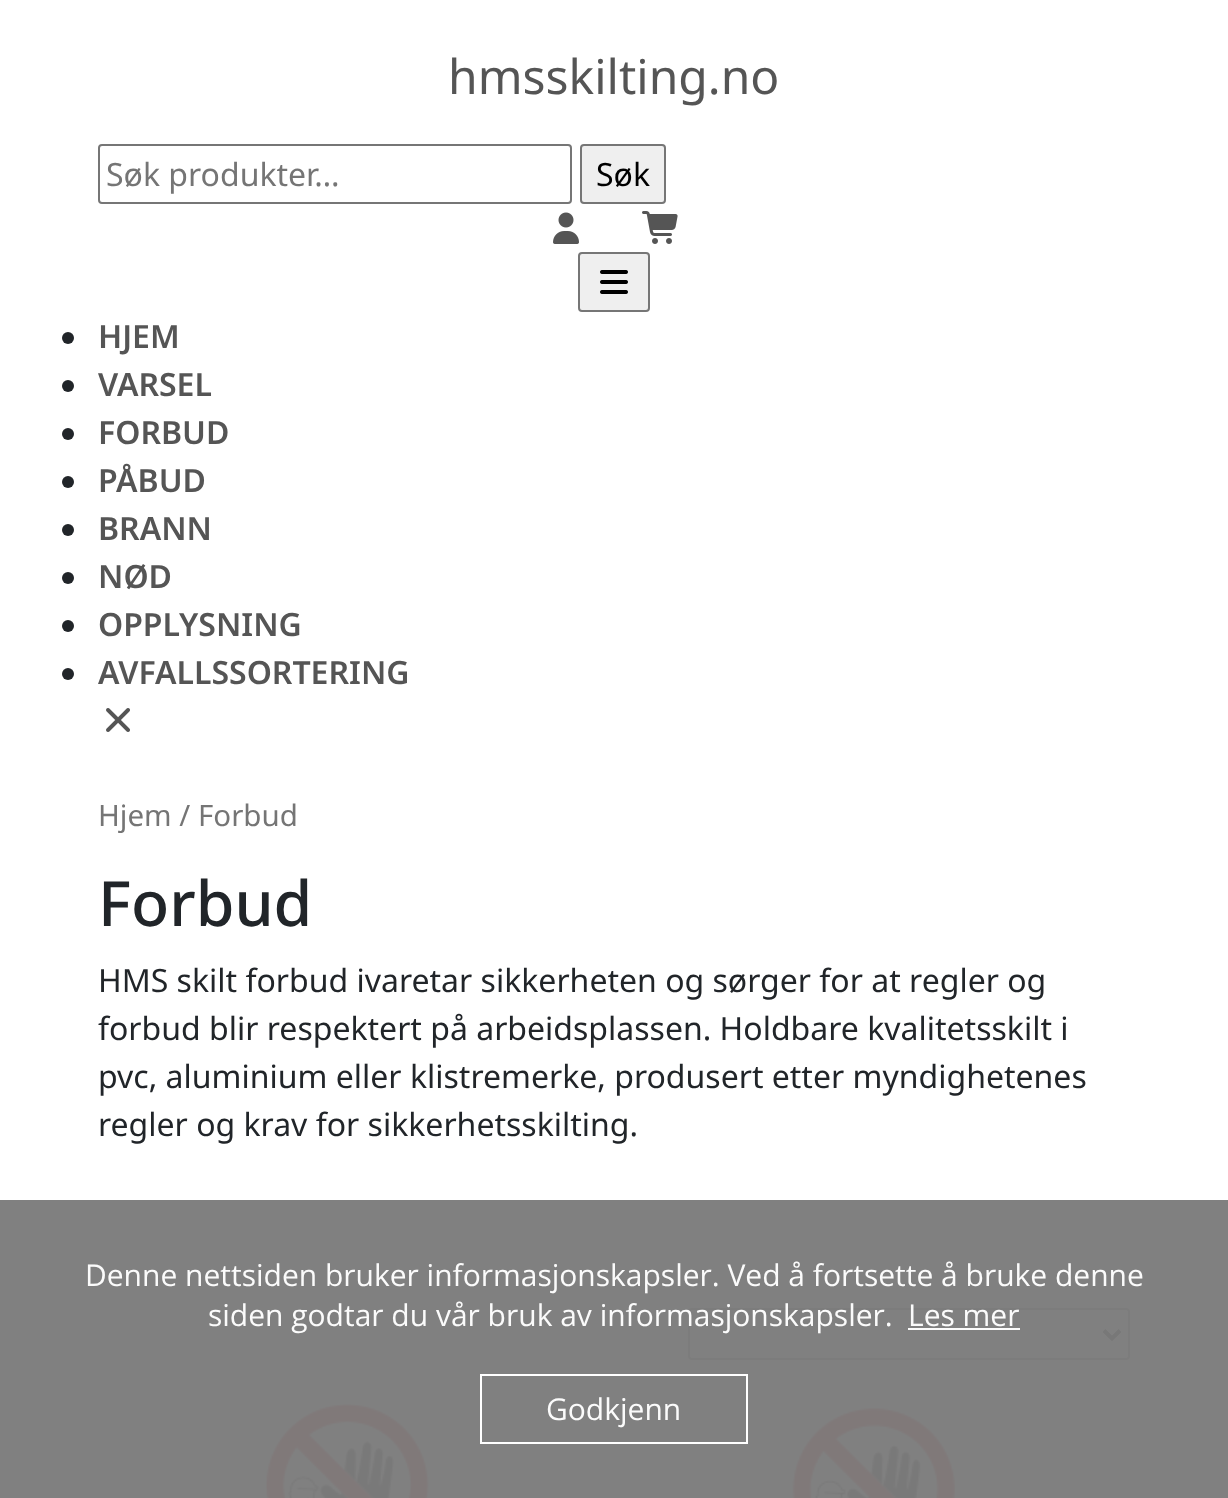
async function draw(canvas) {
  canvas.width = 1228
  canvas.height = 1498
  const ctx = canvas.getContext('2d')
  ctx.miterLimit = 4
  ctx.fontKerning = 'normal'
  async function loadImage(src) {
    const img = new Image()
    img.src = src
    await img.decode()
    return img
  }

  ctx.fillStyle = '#fff'
  ctx.fillRect(0, 0, 1228, 1498)
  ctx.font = '48px Noto Sans'
  ctx.fillStyle = '#555'
  ctx.fillText('hmsskilting.no', 448, 94)
  ctx.beginPath()
  ctx.roundRect(99, 145, 472, 58, 3)
  ctx.strokeStyle = '#767676'
  ctx.lineWidth = 2
  ctx.stroke()
  ctx.font = '32px Noto Sans'
  ctx.fillStyle = '#757575'
  ctx.fillText('Søk produkter…', 106, 186)
  ctx.fillStyle = '#efefef'
  ctx.beginPath()
  ctx.roundRect(581, 145, 84, 58, 3)
  ctx.fill()
  ctx.stroke()
  ctx.fillStyle = '#000'
  ctx.fillText('Søk', 596, 186)
  ctx.drawImage(await loadImage('image0.png'), 553, 212, 26, 32)
  ctx.drawImage(await loadImage('image1.png'), 642, 211, 36, 33)
  ctx.fillStyle = '#efefef'
  ctx.beginPath()
  ctx.roundRect(579, 253, 70, 58, 3)
  ctx.fill()
  ctx.stroke()
  ctx.drawImage(await loadImage('image2.png'), 600, 270, 28, 24)
  ctx.fillStyle = '#212529'
  ctx.beginPath()
  ctx.arc(68, 338, 6, 0, 2 * Math.PI)
  ctx.fill()
  ctx.font = '600 32px Noto Sans'
  ctx.fillStyle = '#555'
  ctx.fillText('HJEM', 98, 348)
  ctx.fillStyle = '#212529'
  ctx.beginPath()
  ctx.arc(68, 386, 6, 0, 2 * Math.PI)
  ctx.fill()
  ctx.fillStyle = '#555'
  ctx.fillText('VARSEL', 98, 396)
  ctx.fillStyle = '#212529'
  ctx.beginPath()
  ctx.arc(68, 434, 6, 0, 2 * Math.PI)
  ctx.fill()
  ctx.fillStyle = '#555'
  ctx.fillText('FORBUD', 98, 444)
  ctx.fillStyle = '#212529'
  ctx.beginPath()
  ctx.arc(68, 482, 6, 0, 2 * Math.PI)
  ctx.fill()
  ctx.fillStyle = '#555'
  ctx.fillText('PÅBUD', 98, 492)
  ctx.fillStyle = '#212529'
  ctx.beginPath()
  ctx.arc(68, 530, 6, 0, 2 * Math.PI)
  ctx.fill()
  ctx.fillStyle = '#555'
  ctx.fillText('BRANN', 98, 540)
  ctx.fillStyle = '#212529'
  ctx.beginPath()
  ctx.arc(68, 578, 6, 0, 2 * Math.PI)
  ctx.fill()
  ctx.fillStyle = '#555'
  ctx.fillText('NØD', 98, 588)
  ctx.fillStyle = '#212529'
  ctx.beginPath()
  ctx.arc(68, 626, 6, 0, 2 * Math.PI)
  ctx.fill()
  ctx.fillStyle = '#555'
  ctx.fillText('OPPLYSNING', 98, 636)
  ctx.fillStyle = '#212529'
  ctx.beginPath()
  ctx.arc(68, 674, 6, 0, 2 * Math.PI)
  ctx.fill()
  ctx.fillStyle = '#555'
  ctx.fillText('AVFALLSSORTERING', 98, 684)
  ctx.drawImage(await loadImage('image3.png'), 106, 708, 24, 24)
  ctx.font = '29.5px Noto Sans'
  ctx.fillStyle = '#757575'
  ctx.fillText('Hjem / Forbud', 98, 826)
  ctx.font = '500 62.5px Noto Sans'
  ctx.fillStyle = '#212529'
  ctx.fillText('Forbud', 98, 926)
  ctx.font = '32px Noto Sans'
  ctx.fillText('HMS skilt forbud ivaretar sikkerheten og sørger for at regler og', 98, 992)
  ctx.fillText('forbud blir respektert på arbeidsplassen. Holdbare kvalitetsskilt i', 98, 1040)
  ctx.fillText('pvc, aluminium eller klistremerke, produsert etter myndighetenes', 98, 1088)
  ctx.fillText('regler og krav for sikkerhetsskilting.', 98, 1136)
  ctx.beginPath()
  ctx.roundRect(689, 1309, 440, 50, 3)
  ctx.stroke()
  ctx.beginPath()
  ctx.moveTo(1104, 1330.5)
  ctx.lineTo(1112, 1338.5)
  ctx.lineTo(1120, 1330.5)
  ctx.strokeStyle = '#000'
  ctx.lineWidth = 4
  ctx.stroke()
  ctx.drawImage(await loadImage('image4.png'), 264, 1403, 165, 95)
  ctx.drawImage(await loadImage('image5.png'), 792, 1408, 164, 90)
  ctx.fillStyle = '#7c7c7cf7'
  ctx.fillRect(0, 1200, 1228, 298)
  ctx.font = '30px Open Sans'
  ctx.fillStyle = '#fbfbfb'
  ctx.fillText('Denne nettsiden bruker informasjonskapsler. Ved å fortsette å bruke denne', 85, 1286)
  ctx.fillText('siden godtar du vår bruk av informasjonskapsler.', 208, 1326)
  ctx.fillText('Les mer', 908, 1326)
  ctx.fillStyle = '#fffffff7'
  ctx.fillRect(908, 1328, 112, 2)
  ctx.strokeStyle = '#fff'
  ctx.lineWidth = 2
  ctx.strokeRect(481, 1375, 266, 68)
  ctx.fillStyle = '#fbfbfb'
  ctx.fillText('Godkjenn', 546, 1420)
}

draw(document.querySelector('canvas'))
